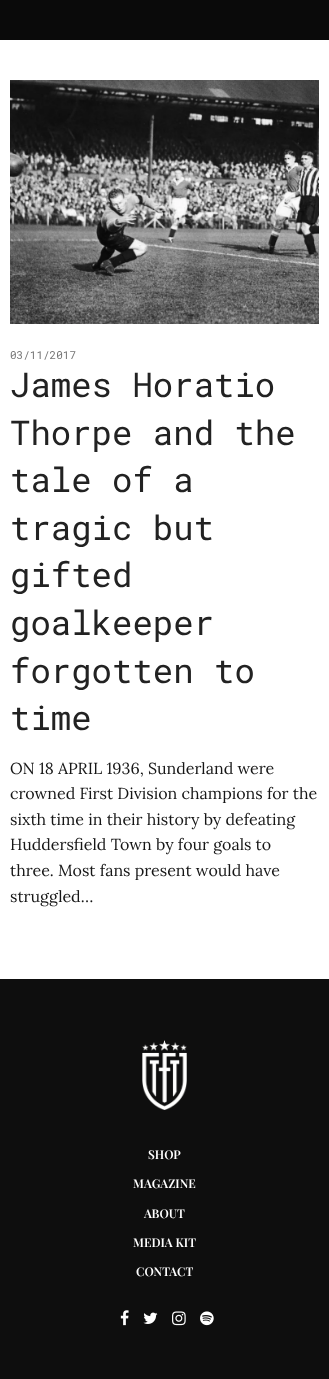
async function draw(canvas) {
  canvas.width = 329
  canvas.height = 1379
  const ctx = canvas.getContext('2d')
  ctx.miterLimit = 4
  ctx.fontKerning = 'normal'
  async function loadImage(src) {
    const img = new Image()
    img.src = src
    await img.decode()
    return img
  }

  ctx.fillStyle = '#fff'
  ctx.fillRect(0, 0, 329, 1379)
  ctx.fillStyle = '#0a0a0a'
  ctx.fillRect(0, 0, 329, 40)
  ctx.drawImage(await loadImage('image0.png'), 10, 80, 309, 244)
  ctx.font = '11px Roboto Mono'
  ctx.fillStyle = '#767676'
  ctx.fillText('03/11/2017', 10, 359)
  ctx.font = '34px Roboto Mono'
  ctx.fillStyle = '#222'
  ctx.fillText('James Horatio', 10, 397)
  ctx.fillText('Thorpe and the', 10, 445)
  ctx.fillText('tale of a', 10, 492)
  ctx.fillText('tragic but', 10, 540)
  ctx.fillText('gifted', 10, 587)
  ctx.fillText('goalkeeper', 10, 635)
  ctx.fillText('forgotten to', 10, 683)
  ctx.fillText('time', 10, 730)
  ctx.font = '16px Lora'
  ctx.fillStyle = '#161616'
  ctx.fillText('ON 18 APRIL 1936, Sunderland were', 10, 774)
  ctx.fillText('crowned First Division champions for the', 10, 799)
  ctx.fillText('sixth time in their history by defeating', 10, 825)
  ctx.fillText('Huddersfield Town by four goals to', 10, 850)
  ctx.fillText('three. Most fans present would have', 10, 876)
  ctx.fillText('struggled…', 10, 902)
  ctx.fillStyle = '#0e0e0e'
  ctx.fillRect(0, 979, 329, 400)
  ctx.drawImage(await loadImage('image1.png'), 142, 1040, 45, 70)
  ctx.font = '600 12px Playfair Display'
  ctx.fillStyle = '#fff'
  ctx.fillText('SHOP', 148, 1159)
  ctx.fillText('MAGAZINE', 133, 1188)
  ctx.fillText('ABOUT', 144, 1218)
  ctx.fillText('MEDIA KIT', 133, 1247)
  ctx.fillText('CONTACT', 136, 1276)
  ctx.drawImage(await loadImage('image2.png'), 120, 1310, 9, 16)
  ctx.drawImage(await loadImage('image3.png'), 143, 1312, 15, 12)
  ctx.drawImage(await loadImage('image4.png'), 172, 1311, 14, 15)
  ctx.drawImage(await loadImage('image5.png'), 200, 1311, 14, 15)
}

draw(document.querySelector('canvas'))
